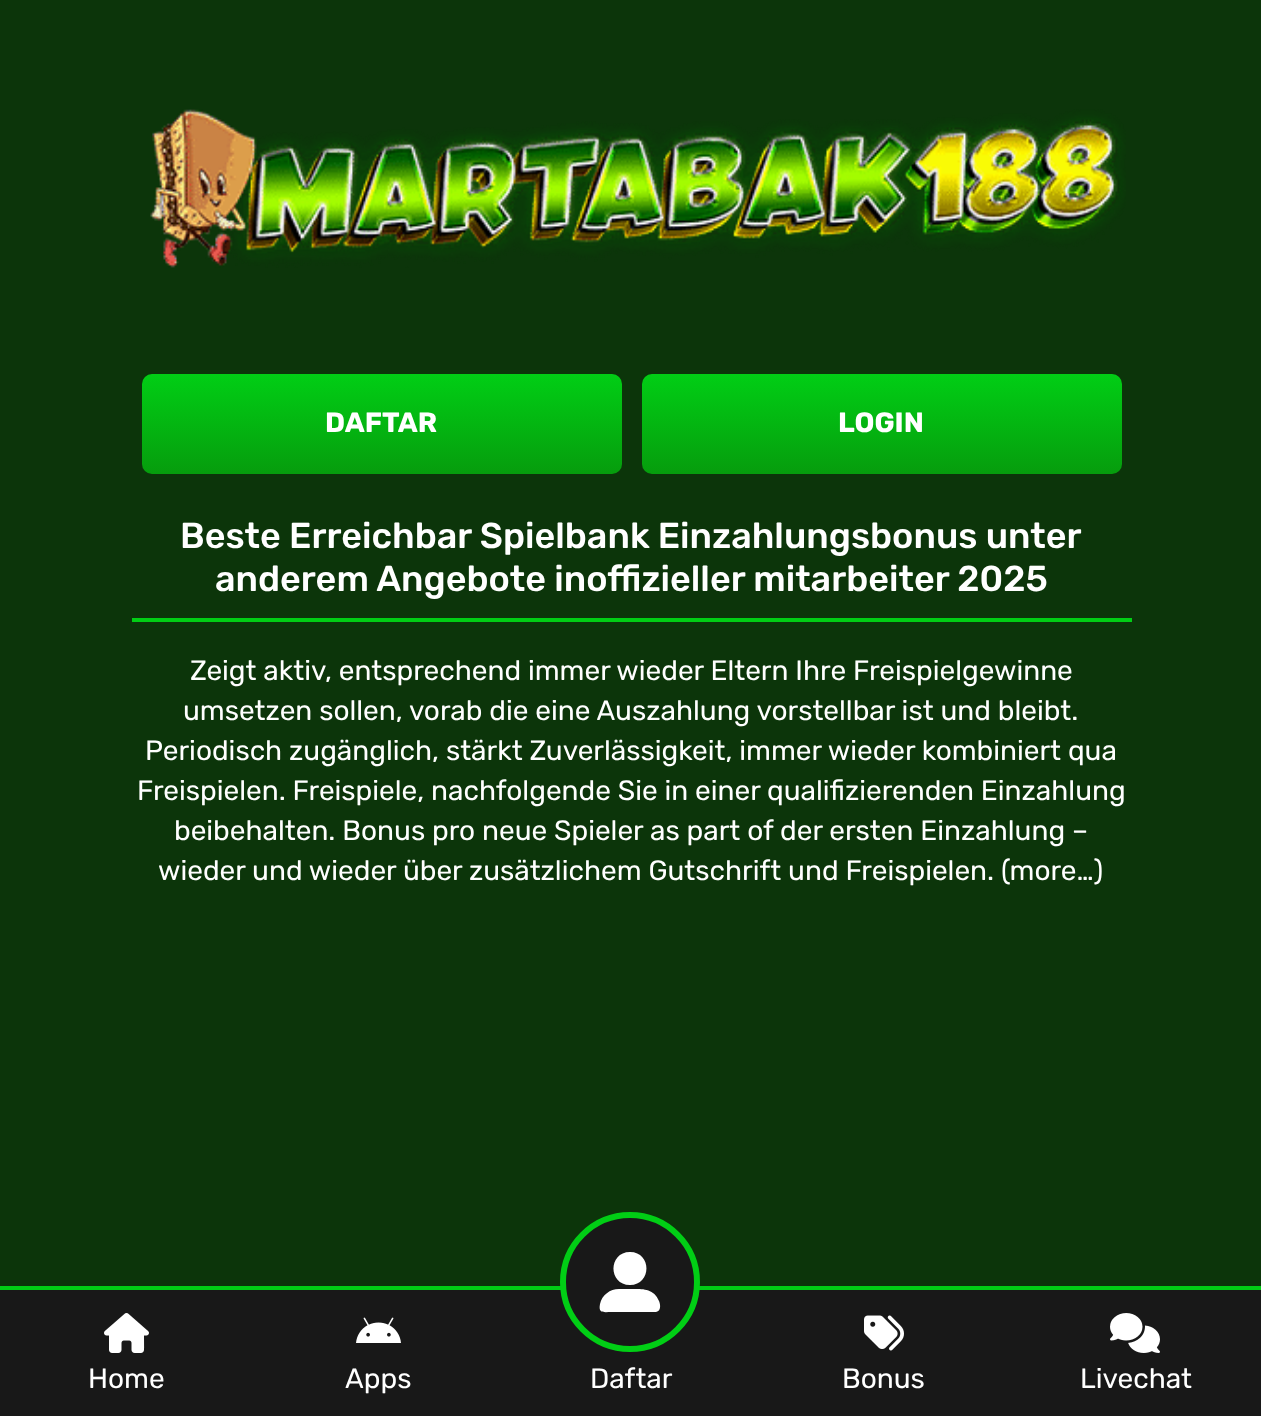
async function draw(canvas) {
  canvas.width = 1261
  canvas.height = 1416
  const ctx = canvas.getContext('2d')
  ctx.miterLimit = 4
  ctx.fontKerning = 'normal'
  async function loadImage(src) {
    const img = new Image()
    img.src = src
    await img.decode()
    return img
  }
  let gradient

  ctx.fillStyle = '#0c350a'
  ctx.fillRect(0, 0, 1261, 1416)
  ctx.drawImage(await loadImage('image0.png'), 150, 109, 976, 159)
  gradient = ctx.createLinearGradient(382, 374, 382, 474)
  gradient.addColorStop(0, '#01ce15')
  gradient.addColorStop(1, '#069d0d')
  ctx.fillStyle = gradient
  ctx.beginPath()
  ctx.roundRect(142, 374, 480, 100, 10)
  ctx.fill()
  ctx.font = 'bold 28px Rubik'
  ctx.fillStyle = '#fff'
  ctx.fillText('DAFTAR', 325, 432)
  gradient = ctx.createLinearGradient(882, 374, 882, 474)
  gradient.addColorStop(0, '#01ce15')
  gradient.addColorStop(1, '#069d0d')
  ctx.fillStyle = gradient
  ctx.beginPath()
  ctx.roundRect(642, 374, 480, 100, 10)
  ctx.fill()
  ctx.fillStyle = '#fff'
  ctx.fillText('LOGIN', 838, 432)
  ctx.fillStyle = '#01ce15'
  ctx.fillRect(132, 618, 1000, 4)
  ctx.font = '500 36px Rubik'
  ctx.fillStyle = '#fff'
  ctx.fillText('Beste Erreichbar Spielbank Einzahlungsbonus unter', 180, 548)
  ctx.fillText('anderem Angebote inoffizieller mitarbeiter 2025', 215, 591)
  ctx.font = '28px Rubik'
  ctx.fillText('Zeigt aktiv, entsprechend immer wieder Eltern Ihre Freispielgewinne', 190, 680)
  ctx.fillText('umsetzen sollen, vorab die eine Auszahlung vorstellbar ist und bleibt.', 183, 720)
  ctx.fillText('Periodisch zugänglich, stärkt Zuverlässigkeit, immer wieder kombiniert qua', 145, 760)
  ctx.fillText('Freispielen. Freispiele, nachfolgende Sie in einer qualifizierenden Einzahlung', 137, 800)
  ctx.fillText('beibehalten. Bonus pro neue Spieler as part of der ersten Einzahlung –', 174, 840)
  ctx.fillText('wieder und wieder über zusätzlichem Gutschrift und Freispielen. (more…)', 158, 880)
  ctx.fillStyle = '#181818'
  ctx.fillRect(0, 1290, 1261, 126)
  ctx.fillStyle = '#01ce15'
  ctx.fillRect(0, 1286, 1261, 4)
  ctx.drawImage(await loadImage('image1.png'), 104, 1313, 45, 40)
  ctx.fillStyle = '#fff'
  ctx.fillText('Home', 88, 1388)
  ctx.drawImage(await loadImage('image2.png'), 356, 1317, 45, 26)
  ctx.fillText('Apps', 345, 1388)
  ctx.fillStyle = '#181818'
  ctx.beginPath()
  ctx.arc(630, 1282, 67, 0, 2 * Math.PI)
  ctx.fill()
  ctx.strokeStyle = '#01ce15'
  ctx.lineWidth = 6
  ctx.stroke()
  ctx.fillStyle = '#fff'
  ctx.beginPath()
  ctx.moveTo(630, 1285)
  ctx.bezierCurveTo(652, 1285, 652, 1252, 630, 1252)
  ctx.bezierCurveTo(608, 1252, 608, 1285, 630, 1285)
  ctx.closePath()
  ctx.moveTo(619, 1289)
  ctx.bezierCurveTo(610, 1289, 602, 1295, 600, 1304)
  ctx.bezierCurveTo(598, 1314, 604, 1312, 612, 1312)
  ctx.lineTo(656, 1312)
  ctx.bezierCurveTo(662, 1311, 660, 1303, 659, 1301)
  ctx.bezierCurveTo(654, 1289, 644, 1289, 634, 1289)
  ctx.closePath()
  ctx.fill()
  ctx.fillText('Daftar', 590, 1388)
  ctx.drawImage(await loadImage('image3.png'), 864, 1315, 40, 36)
  ctx.fillText('Bonus', 842, 1388)
  ctx.drawImage(await loadImage('image4.png'), 1110, 1313, 50, 40)
  ctx.fillText('Livechat', 1080, 1388)
}

draw(document.querySelector('canvas'))
